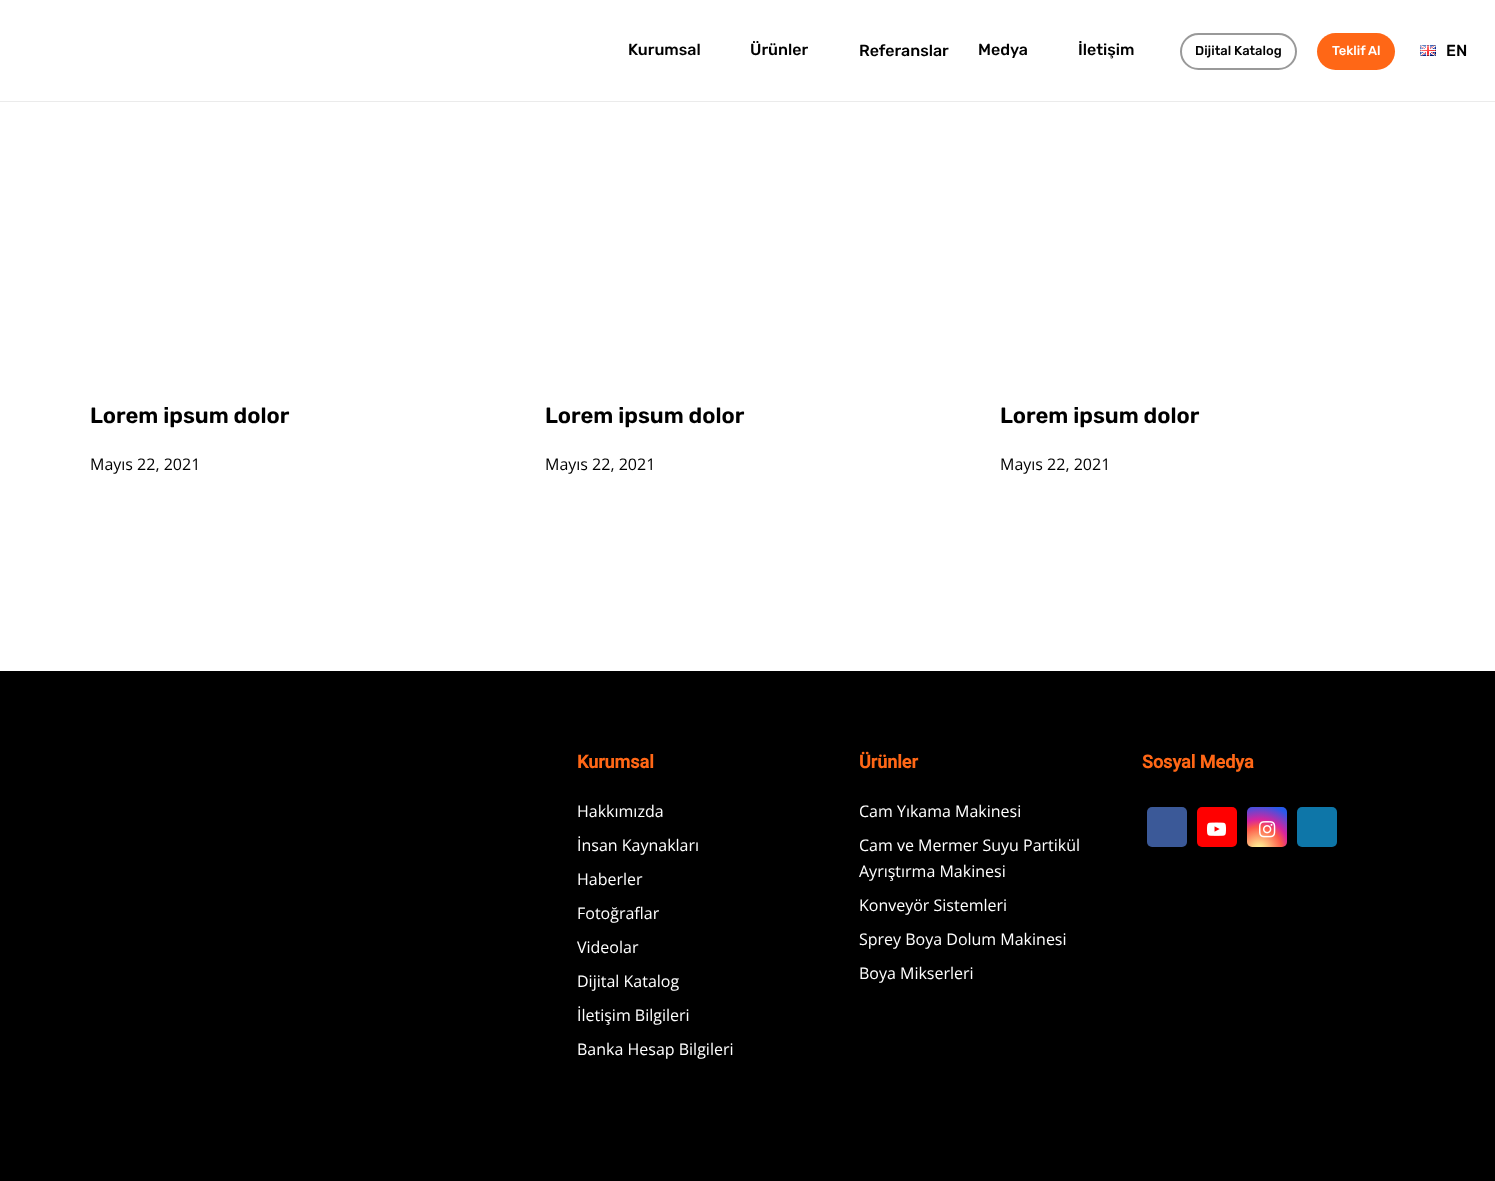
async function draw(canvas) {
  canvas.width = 1495
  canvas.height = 1181
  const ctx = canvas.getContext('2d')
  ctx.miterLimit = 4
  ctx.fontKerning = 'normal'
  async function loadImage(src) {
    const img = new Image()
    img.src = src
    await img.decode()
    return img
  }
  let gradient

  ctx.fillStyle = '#fff'
  ctx.fillRect(0, 0, 1495, 1181)
  ctx.fillStyle = '#ebebeb'
  ctx.fillRect(0, 101, 1495, 1)
  ctx.font = '500 16px Rubik'
  ctx.fillStyle = '#000'
  ctx.fillText('Kurumsal', 628, 55)
  ctx.fillText('Ürünler', 750, 55)
  ctx.fillText('Referanslar', 859, 56)
  ctx.fillText('Medya', 978, 55)
  ctx.fillText('İletişim', 1078, 55)
  ctx.beginPath()
  ctx.roundRect(1181, 34, 115, 35, 17.5)
  ctx.strokeStyle = '#999'
  ctx.lineWidth = 2
  ctx.stroke()
  ctx.font = '500 13px Rubik'
  ctx.fillText('Dijital Katalog', 1195, 55)
  ctx.fillStyle = '#ff6716'
  ctx.beginPath()
  ctx.roundRect(1317, 33, 78, 37, 18.5)
  ctx.fill()
  ctx.fillStyle = '#fff'
  ctx.fillText('Teklif Al', 1332, 55)
  ctx.drawImage(await loadImage('image0.png'), 1420, 45, 16, 11)
  ctx.font = '500 16px Rubik'
  ctx.fillStyle = '#000'
  ctx.fillText('EN', 1446, 56)
  ctx.font = '600 22px Rubik'
  ctx.fillText('Lorem ipsum dolor', 90, 423)
  ctx.font = '16px Open Sans'
  ctx.fillText('Mayıs 22, 2021', 90, 470)
  ctx.font = '600 22px Rubik'
  ctx.fillText('Lorem ipsum dolor', 545, 423)
  ctx.font = '16px Open Sans'
  ctx.fillText('Mayıs 22, 2021', 545, 470)
  ctx.font = '600 22px Rubik'
  ctx.fillText('Lorem ipsum dolor', 1000, 423)
  ctx.font = '16px Open Sans'
  ctx.fillText('Mayıs 22, 2021', 1000, 470)
  ctx.fillRect(0, 671, 1495, 510)
  ctx.font = 'bold 18px Roboto'
  ctx.fillStyle = '#ff6716'
  ctx.fillText('Kurumsal', 577, 768)
  ctx.font = '16px Open Sans'
  ctx.fillStyle = '#fff'
  ctx.fillText('Hakkımızda', 577, 817)
  ctx.fillText('İnsan Kaynakları', 577, 851)
  ctx.fillText('Haberler', 577, 885)
  ctx.fillText('Fotoğraflar', 577, 919)
  ctx.fillText('Videolar', 577, 953)
  ctx.fillText('Dijital Katalog', 577, 987)
  ctx.fillText('İletişim Bilgileri', 577, 1021)
  ctx.fillText('Banka Hesap Bilgileri', 577, 1055)
  ctx.font = 'bold 18px Roboto'
  ctx.fillStyle = '#ff6716'
  ctx.fillText('Ürünler', 859, 768)
  ctx.font = '16px Open Sans'
  ctx.fillStyle = '#fff'
  ctx.fillText('Cam Yıkama Makinesi', 859, 817)
  ctx.fillText('Cam ve Mermer Suyu Partikül', 859, 851)
  ctx.fillText('Ayrıştırma Makinesi', 859, 877)
  ctx.fillText('Konveyör Sistemleri', 859, 911)
  ctx.fillText('Sprey Boya Dolum Makinesi', 859, 945)
  ctx.fillText('Boya Mikserleri', 859, 979)
  ctx.font = 'bold 18px Roboto'
  ctx.fillStyle = '#ff6716'
  ctx.fillText('Sosyal Medya', 1142, 768)
  ctx.fillStyle = '#3b5998'
  ctx.beginPath()
  ctx.roundRect(1147, 807, 40, 40, 5)
  ctx.fill()
  ctx.fillStyle = '#f00'
  ctx.beginPath()
  ctx.roundRect(1197, 807, 40, 40, 5)
  ctx.fill()
  ctx.drawImage(await loadImage('image1.png'), 1207, 822, 19, 14)
  gradient = ctx.createRadialGradient(1259, 850, 0, 1259, 850, 51)
  gradient.addColorStop(0, '#fdf497')
  gradient.addColorStop(0.05, '#fdf497')
  gradient.addColorStop(0.45, '#fd5949')
  gradient.addColorStop(0.6, '#d6249f')
  gradient.addColorStop(0.9, '#285aeb')
  ctx.fillStyle = gradient
  ctx.beginPath()
  ctx.roundRect(1247, 807, 40, 40, 5)
  ctx.fill()
  ctx.drawImage(await loadImage('image2.png'), 1259, 821, 17, 17)
  ctx.fillStyle = '#0e76a8'
  ctx.beginPath()
  ctx.roundRect(1297, 807, 40, 40, 5)
  ctx.fill()
}

draw(document.querySelector('canvas'))
